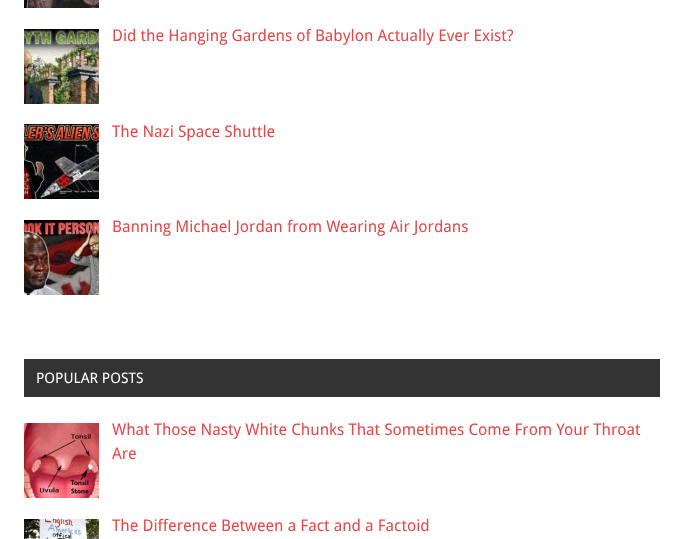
async function draw(canvas) {
  canvas.width = 684
  canvas.height = 539
  const ctx = canvas.getContext('2d')
  ctx.miterLimit = 4
  ctx.fontKerning = 'normal'
  async function loadImage(src) {
    const img = new Image()
    img.src = src
    await img.decode()
    return img
  }

  ctx.fillStyle = '#fff'
  ctx.fillRect(0, 0, 684, 539)
  ctx.drawImage(await loadImage('image0.png'), 24, 0, 75, 8)
  ctx.drawImage(await loadImage('image1.png'), 24, 29, 75, 75)
  ctx.font = '16px Droid Sans'
  ctx.fillStyle = '#e84747'
  ctx.fillText('Did the Hanging Gardens of Babylon Actually Ever Exist?', 112, 41)
  ctx.drawImage(await loadImage('image2.png'), 24, 124, 75, 75)
  ctx.fillText('The Nazi Space Shuttle', 112, 137)
  ctx.drawImage(await loadImage('image3.png'), 24, 220, 75, 75)
  ctx.fillText('Banning Michael Jordan from Wearing Air Jordans', 112, 232)
  ctx.fillStyle = '#333'
  ctx.fillRect(24, 359, 636, 38)
  ctx.font = '14.5px Droid Sans'
  ctx.fillStyle = '#fff'
  ctx.fillText('POPULAR POSTS', 36, 383)
  ctx.drawImage(await loadImage('image4.png'), 24, 423, 75, 75)
  ctx.font = '16px Droid Sans'
  ctx.fillStyle = '#e84747'
  ctx.fillText('What Those Nasty White Chunks That Sometimes Come From Your Throat', 112, 435)
  ctx.fillText('Are', 112, 459)
  ctx.drawImage(await loadImage('image5.png'), 24, 519, 75, 20)
  ctx.fillText('The Difference Between a Fact and a Factoid', 112, 531)
}

draw(document.querySelector('canvas'))
